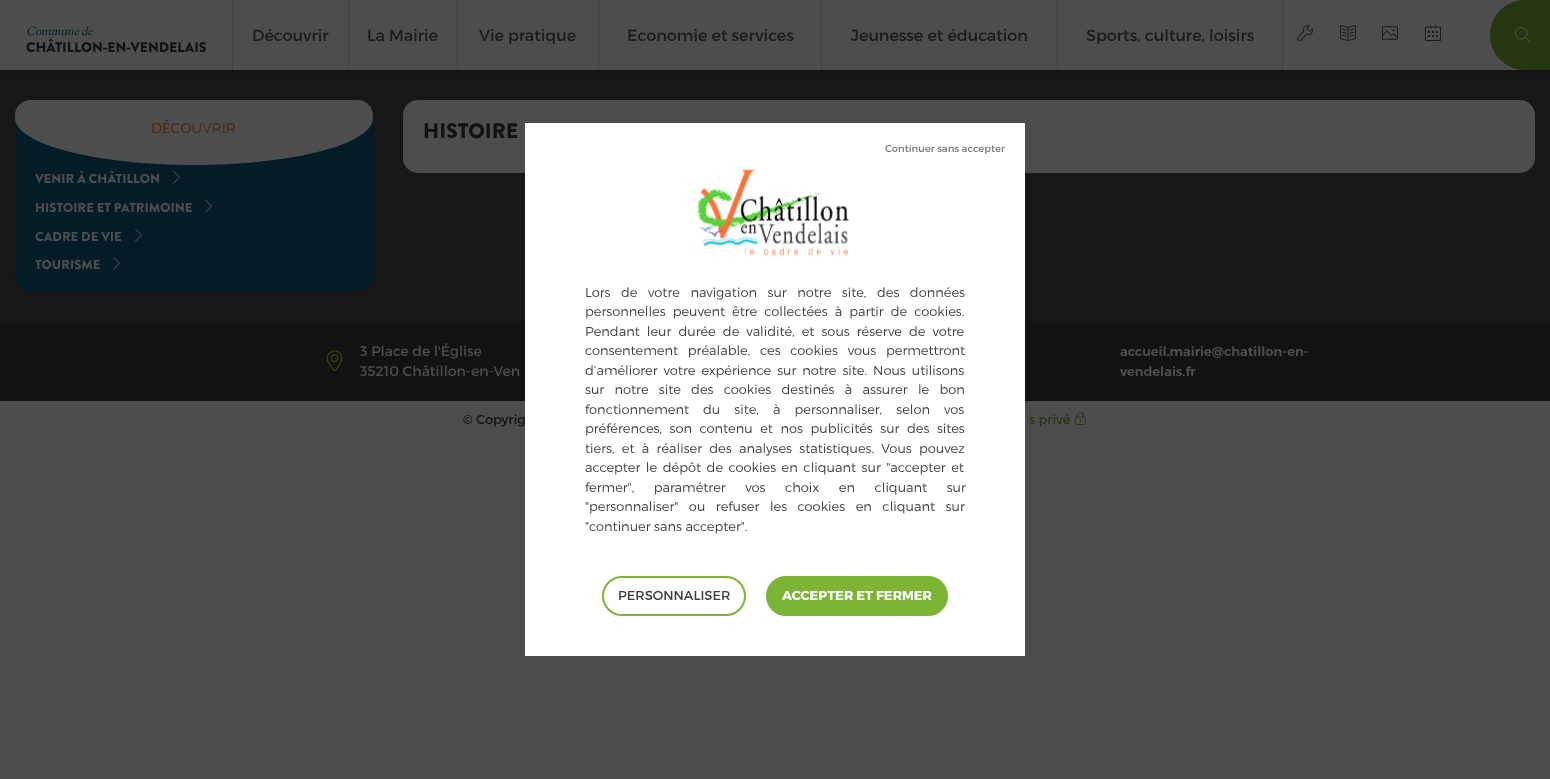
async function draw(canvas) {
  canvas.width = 1550
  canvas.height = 779
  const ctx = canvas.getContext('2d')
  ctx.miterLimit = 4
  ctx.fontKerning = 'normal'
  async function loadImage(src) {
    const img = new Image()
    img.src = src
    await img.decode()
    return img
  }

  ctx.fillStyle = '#4d4d4d'
  ctx.fillRect(0, 0, 1550, 779)
  ctx.fillStyle = '#171717'
  ctx.fillRect(0, 70, 1550, 251)
  ctx.fillStyle = '#00000026'
  ctx.filter = 'blur(2.5px)'
  ctx.beginPath()
  ctx.rect(2, 2, 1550, 70)
  ctx.fill()
  ctx.filter = 'none'
  ctx.fillStyle = '#4d4d4d'
  ctx.fillRect(0, 0, 1525, 70)
  ctx.fillStyle = '#414141'
  ctx.fillRect(232, 0, 1, 70)
  ctx.font = 'italic 12.5px EB Garamond'
  ctx.fillStyle = '#031c25'
  ctx.fillText('Commune de', 26, 35)
  ctx.font = '900 14px Brandon Grotesque'
  ctx.fillStyle = '#121212'
  ctx.fillText('CHÂTILLON-EN-VENDELAIS', 26, 52)
  ctx.fillStyle = '#414141'
  ctx.fillRect(348, 0, 1, 70)
  ctx.font = '16px Montserrat'
  ctx.fillStyle = '#1b1b1b'
  ctx.fillText('Découvrir', 252, 41)
  ctx.fillStyle = '#414141'
  ctx.fillRect(457, 0, 1, 70)
  ctx.fillStyle = '#1b1b1b'
  ctx.fillText('La Mairie', 367, 41)
  ctx.fillStyle = '#414141'
  ctx.fillRect(598, 0, 1, 70)
  ctx.fillStyle = '#1b1b1b'
  ctx.fillText('Vie pratique', 479, 41)
  ctx.fillStyle = '#414141'
  ctx.fillRect(821, 0, 1, 70)
  ctx.fillStyle = '#1b1b1b'
  ctx.fillText('Economie et services', 627, 41)
  ctx.fillStyle = '#414141'
  ctx.fillRect(1057, 0, 1, 70)
  ctx.fillStyle = '#1b1b1b'
  ctx.fillText('Jeunesse et éducation', 851, 41)
  ctx.fillStyle = '#414141'
  ctx.fillRect(1282, 0, 1, 70)
  ctx.fillStyle = '#1b1b1b'
  ctx.fillText('Sports, culture, loisirs', 1086, 41)
  ctx.drawImage(await loadImage('image0.png'), 1297, 25, 16, 16)
  ctx.drawImage(await loadImage('image1.png'), 1340, 25, 16, 16)
  ctx.drawImage(await loadImage('image2.png'), 1382, 26, 16, 14)
  ctx.drawImage(await loadImage('image3.png'), 1425, 25, 16, 16)
  ctx.fillStyle = '#253610'
  ctx.beginPath()
  ctx.moveTo(1525, 0)
  ctx.lineTo(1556, 0)
  ctx.lineTo(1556, 70)
  ctx.lineTo(1525, 70)
  ctx.bezierCurveTo(1505.5, 70, 1490, 54.5, 1490, 35)
  ctx.bezierCurveTo(1490, 15.5, 1505.5, 0, 1525, 0)
  ctx.closePath()
  ctx.fill()
  ctx.drawImage(await loadImage('image4.png'), 1515, 27, 16, 16)
  ctx.fillStyle = '#031c25'
  ctx.beginPath()
  ctx.roundRect(15, 100, 358, 191, 15)
  ctx.fill()
  ctx.fillStyle = '#4d4d4d'
  ctx.beginPath()
  ctx.moveTo(30, 100)
  ctx.bezierCurveTo(22, 100, 15, 107, 15, 115)
  ctx.lineTo(15, 118)
  ctx.bezierCurveTo(15, 144, 95, 165, 194, 165)
  ctx.bezierCurveTo(293, 165, 373, 144, 373, 118)
  ctx.lineTo(373, 115)
  ctx.bezierCurveTo(373, 107, 366, 100, 358, 100)
  ctx.closePath()
  ctx.fill()
  ctx.font = '300 14px Montserrat'
  ctx.fillStyle = '#4a280a'
  ctx.fillText('DÉCOUVRIR', 151, 133)
  ctx.font = '900 13px Brandon Grotesque'
  ctx.fillStyle = '#4d4d4d'
  ctx.fillText('VENIR À CHÂTILLON', 35, 183)
  ctx.drawImage(await loadImage('image5.png'), 173, 170, 7, 14)
  ctx.fillText('HISTOIRE ET PATRIMOINE', 35, 212)
  ctx.drawImage(await loadImage('image6.png'), 205, 199, 7, 14)
  ctx.fillText('CADRE DE VIE', 35, 241)
  ctx.drawImage(await loadImage('image6.png'), 135, 228, 7, 14)
  ctx.fillText('TOURISME', 35, 269)
  ctx.drawImage(await loadImage('image6.png'), 113, 256, 7, 14)
  ctx.beginPath()
  ctx.roundRect(403, 100, 1132, 73, 15)
  ctx.fill()
  ctx.font = '900 21px Brandon Grotesque'
  ctx.fillStyle = '#121212'
  ctx.fillText('HISTOIRE', 423, 138)
  ctx.fillRect(0, 321, 1550, 80)
  ctx.drawImage(await loadImage('image7.png'), 326, 350, 17, 22)
  ctx.font = '14px Montserrat'
  ctx.fillStyle = '#4d4d4d'
  ctx.fillText('3 Place de l\'Église', 360, 356)
  ctx.fillText('35210 Châtillon-en-Ven', 360, 376)
  ctx.font = '600 13px Montserrat'
  ctx.fillText('accueil.mairie@chatillon-en-', 1120, 356)
  ctx.fillText('vendelais.fr', 1120, 376)
  ctx.font = '13px Montserrat'
  ctx.fillStyle = '#121212'
  ctx.fillText('© Copyrig', 463, 424)
  ctx.fillStyle = '#253610'
  ctx.fillText('s privé', 1029, 424)
  ctx.drawImage(await loadImage('image8.png'), 1075, 411, 11, 14)
  ctx.fillStyle = '#fff'
  ctx.fillRect(525, 123, 500, 533)
  ctx.font = '10px Montserrat'
  ctx.fillStyle = '#787878'
  ctx.fillText('Continuer sans accepter', 885, 152)
  ctx.drawImage(await loadImage('image9.png'), 697, 169, 152, 87)
  ctx.wordSpacing = '7px'
  ctx.font = '300 13px Montserrat'
  ctx.fillStyle = '#3e3e3e'
  ctx.fillText('Lors de votre navigation sur notre site, des données', 585, 297)
  ctx.wordSpacing = '3.5px'
  ctx.fillText('personnelles peuvent être collectées à partir de cookies.', 585, 316)
  ctx.fillText('Pendant leur durée de validité, et sous réserve de votre', 585, 336)
  ctx.wordSpacing = '6.25px'
  ctx.fillText('consentement préalable, ces cookies vous permettront', 585, 355)
  ctx.wordSpacing = '2.5px'
  ctx.fillText('d’améliorer votre expérience sur notre site. Nous utilisons', 585, 375)
  ctx.wordSpacing = '6.75px'
  ctx.fillText('sur notre site des cookies destinés à assurer le bon', 585, 394)
  ctx.wordSpacing = '10.5px'
  ctx.fillText('fonctionnement du site, à personnaliser, selon vos', 585, 414)
  ctx.wordSpacing = '4px'
  ctx.fillText('préférences, son contenu et nos publicités sur des sites', 585, 433)
  ctx.wordSpacing = '3.75px'
  ctx.fillText('tiers, et à réaliser des analyses statistiques. Vous pouvez', 585, 453)
  ctx.wordSpacing = '2px'
  ctx.fillText('accepter le dépôt de cookies en cliquant sur "accepter et', 585, 472)
  ctx.wordSpacing = '16px'
  ctx.fillText('fermer", paramétrer vos choix en cliquant sur', 585, 492)
  ctx.wordSpacing = '7px'
  ctx.fillText('"personnaliser" ou refuser les cookies en cliquant sur', 585, 511)
  ctx.wordSpacing = '0px'
  ctx.fillText('"continuer sans accepter".', 585, 531)
  ctx.beginPath()
  ctx.roundRect(603, 577, 142, 38, 19)
  ctx.strokeStyle = '#7cb535'
  ctx.lineWidth = 2
  ctx.stroke()
  ctx.font = '13px Montserrat'
  ctx.fillText('PERSONNALISER', 618, 600)
  ctx.fillStyle = '#7cb535'
  ctx.beginPath()
  ctx.roundRect(767, 577, 180, 38, 19)
  ctx.fill()
  ctx.stroke()
  ctx.font = 'bold 13px Montserrat'
  ctx.fillStyle = '#fff'
  ctx.fillText('ACCEPTER ET FERMER', 782, 600)
}

draw(document.querySelector('canvas'))
